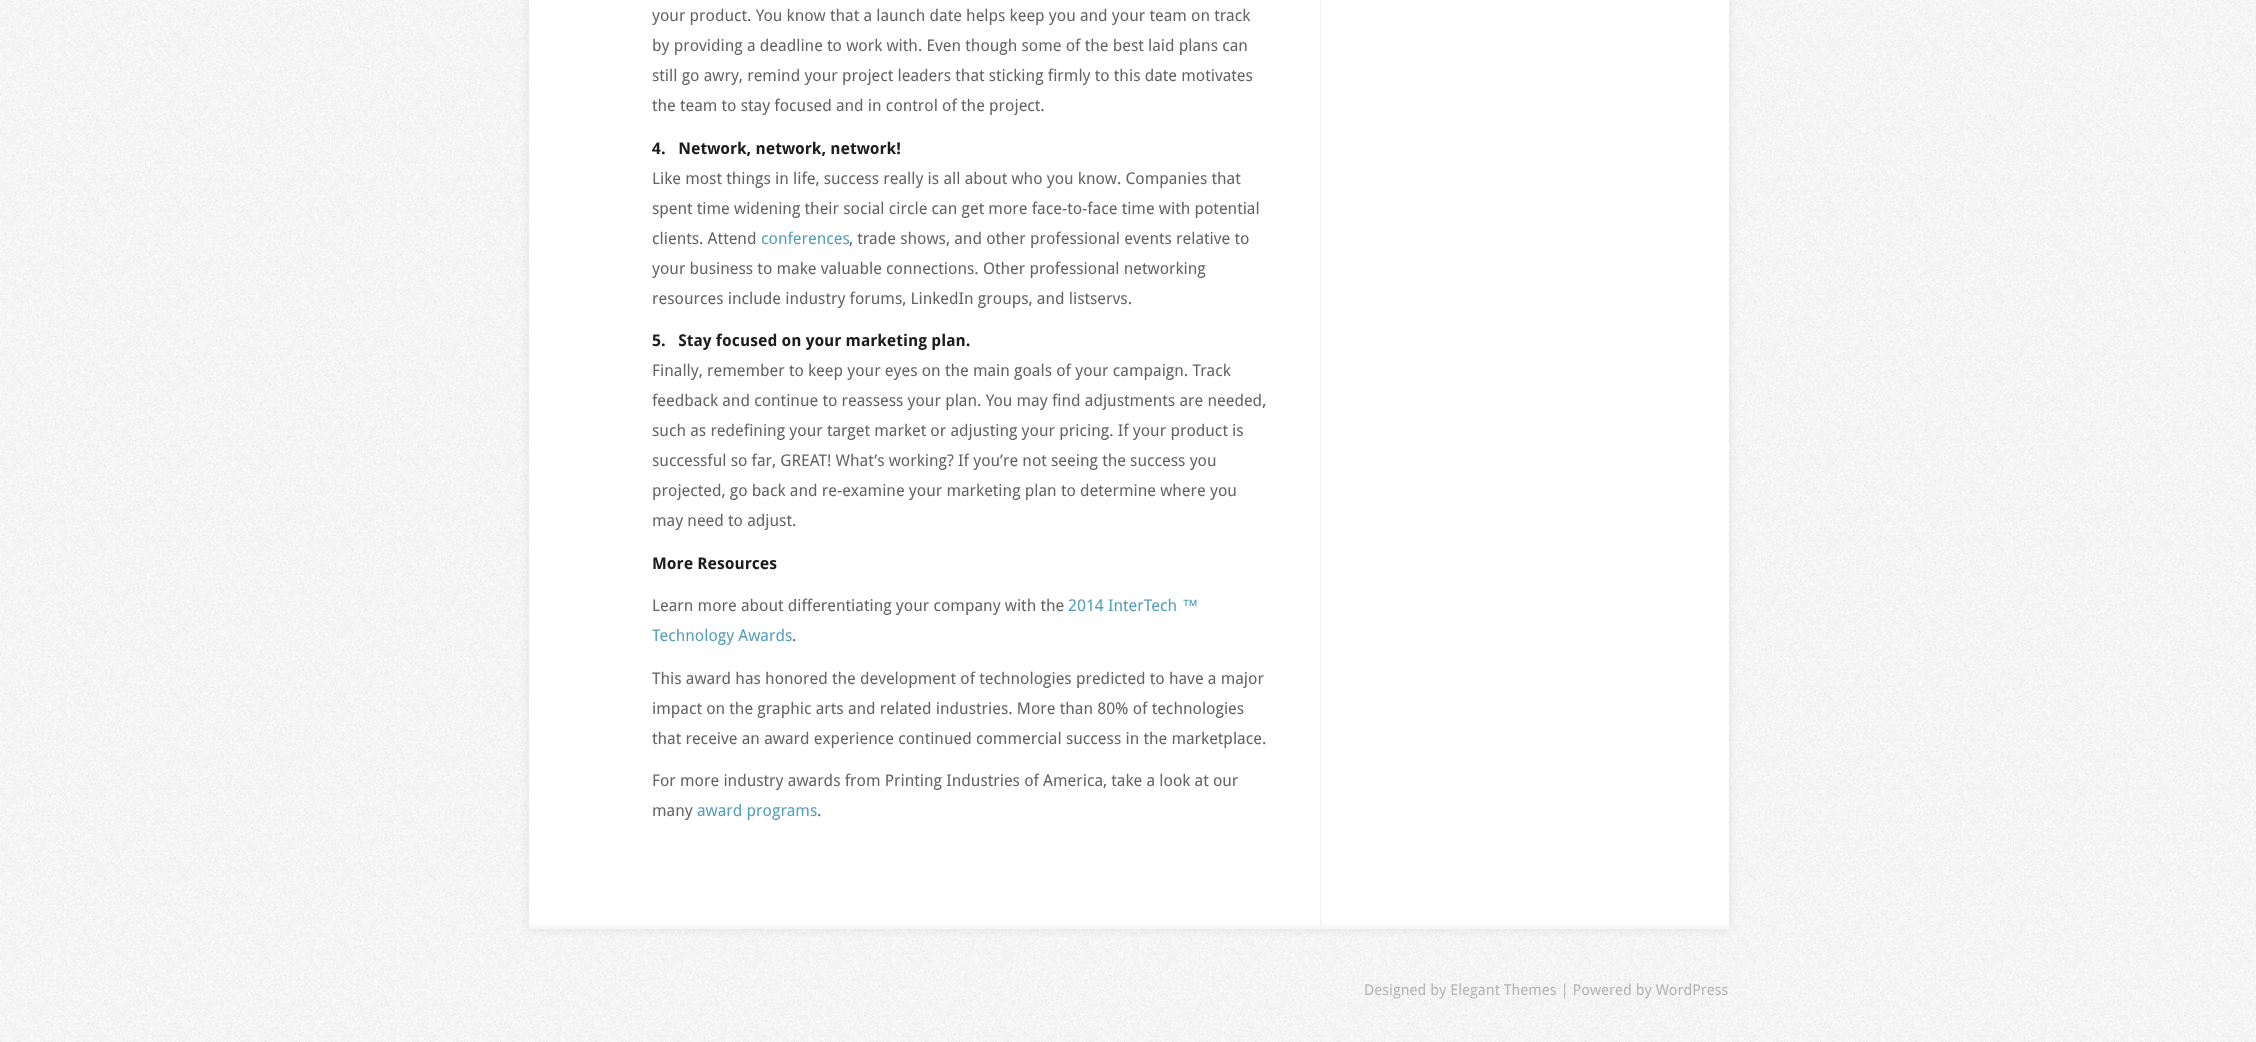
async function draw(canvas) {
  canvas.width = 2256
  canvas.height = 1042
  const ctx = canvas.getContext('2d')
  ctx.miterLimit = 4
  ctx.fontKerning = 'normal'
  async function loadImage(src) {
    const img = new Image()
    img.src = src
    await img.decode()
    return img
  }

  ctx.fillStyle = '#f8f8f8'
  ctx.fillRect(0, 0, 2256, 1042)
  ctx.drawImage(await loadImage('image0.png'), 0, 0, 2256, 1042)
  ctx.fillStyle = '#00000014'
  ctx.filter = 'blur(4.5px)'
  ctx.beginPath()
  ctx.rect(529, -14, 1200, 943)
  ctx.fill()
  ctx.filter = 'none'
  ctx.fillStyle = '#fff'
  ctx.fillRect(529, 0, 1200, 925)
  ctx.font = '16.25px Droid Sans'
  ctx.fillStyle = '#656464'
  ctx.fillText('your product. You know that a launch date helps keep you and your team on track', 652, 21)
  ctx.fillText('by providing a deadline to work with. Even though some of the best laid plans can', 652, 51)
  ctx.fillText('still go awry, remind your project leaders that sticking firmly to this date motivates', 652, 81)
  ctx.fillText('the team to stay focused and in control of the project.', 652, 111)
  ctx.font = 'bold 16.25px Droid Sans'
  ctx.fillStyle = '#1c1c1c'
  ctx.fillText('4.   Network, network, network!', 652, 154)
  ctx.font = '16.25px Droid Sans'
  ctx.fillStyle = '#656464'
  ctx.fillText('Like most things in life, success really is all about who you know. Companies that', 652, 184)
  ctx.fillText('spent time widening their social circle can get more face-to-face time with potential', 652, 214)
  ctx.fillText('clients. Attend', 652, 244)
  ctx.fillStyle = '#549eb9'
  ctx.fillText('conferences', 761, 244)
  ctx.fillStyle = '#656464'
  ctx.fillText(', trade shows, and other professional events relative to', 849, 244)
  ctx.fillText('your business to make valuable connections. Other professional networking', 652, 274)
  ctx.fillText('resources include industry forums, LinkedIn groups, and listservs.', 652, 304)
  ctx.font = 'bold 16.25px Droid Sans'
  ctx.fillStyle = '#1c1c1c'
  ctx.fillText('5.   Stay focused on your marketing plan.', 652, 346)
  ctx.font = '16.25px Droid Sans'
  ctx.fillStyle = '#656464'
  ctx.fillText('Finally, remember to keep your eyes on the main goals of your campaign. Track', 652, 376)
  ctx.fillText('feedback and continue to reassess your plan. You may find adjustments are needed,', 652, 406)
  ctx.fillText('such as redefining your target market or adjusting your pricing. If your product is', 652, 436)
  ctx.fillText('successful so far, GREAT! What’s working? If you’re not seeing the success you', 652, 466)
  ctx.fillText('projected, go back and re-examine your marketing plan to determine where you', 652, 496)
  ctx.fillText('may need to adjust.', 652, 526)
  ctx.font = 'bold 16.25px Droid Sans'
  ctx.fillStyle = '#1c1c1c'
  ctx.fillText('More Resources', 652, 569)
  ctx.font = '16.25px Droid Sans'
  ctx.fillStyle = '#656464'
  ctx.fillText('Learn more about differentiating your company with the', 652, 611)
  ctx.fillStyle = '#549eb9'
  ctx.fillText('2014 InterTech', 1068, 611)
  ctx.font = '16.25px Liberation Sans'
  ctx.fillText('™', 1182, 611)
  ctx.font = '16.25px Droid Sans'
  ctx.fillText('Technology Awards', 652, 641)
  ctx.fillStyle = '#656464'
  ctx.fillText('.', 792, 641)
  ctx.fillText('This award has honored the development of technologies predicted to have a major', 652, 684)
  ctx.fillText('impact on the graphic arts and related industries. More than 80% of technologies', 652, 714)
  ctx.fillText('that receive an award experience continued commercial success in the marketplace.', 652, 744)
  ctx.fillText('For more industry awards from Printing Industries of America, take a look at our', 652, 786)
  ctx.fillText('many', 652, 816)
  ctx.fillStyle = '#549eb9'
  ctx.fillText('award programs', 697, 816)
  ctx.fillStyle = '#656464'
  ctx.fillText('.', 817, 816)
  ctx.fillStyle = '#f7f7f7'
  ctx.fillRect(529, 925, 1200, 4)
  ctx.fillStyle = '#efefef'
  ctx.fillRect(1320, 0, 1, 926)
  ctx.font = '15px Droid Sans'
  ctx.fillStyle = '#b4b4b4'
  ctx.fillText('Designed by Elegant Themes | Powered by WordPress', 1364, 995)
}

draw(document.querySelector('canvas'))
